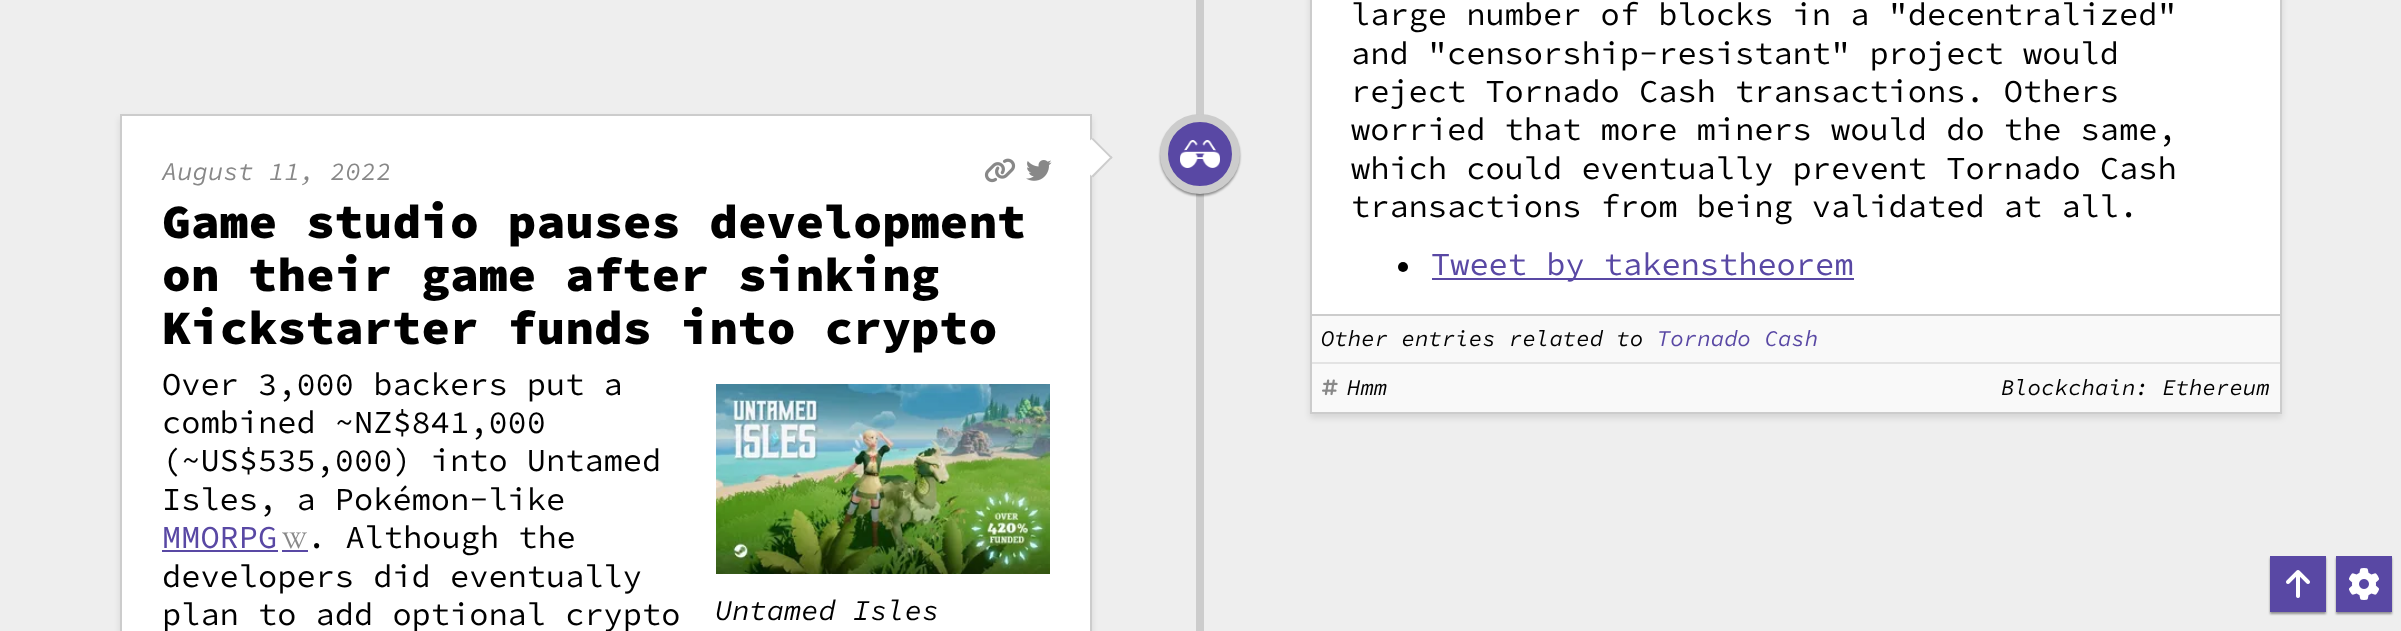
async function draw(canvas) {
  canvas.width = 2401
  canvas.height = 631
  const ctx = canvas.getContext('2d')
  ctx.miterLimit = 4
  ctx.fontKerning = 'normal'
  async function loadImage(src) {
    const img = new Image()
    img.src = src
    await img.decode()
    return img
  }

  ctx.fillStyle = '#eee'
  ctx.fillRect(0, 0, 2401, 631)
  ctx.fillStyle = '#0000001a'
  ctx.filter = 'blur(3px)'
  ctx.beginPath()
  ctx.rect(120, 118, 972, 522)
  ctx.fill()
  ctx.filter = 'none'
  ctx.fillStyle = '#fff'
  ctx.beginPath()
  ctx.rect(121, 115, 970, 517)
  ctx.fill()
  ctx.strokeStyle = '#ccc'
  ctx.lineWidth = 2
  ctx.stroke()
  ctx.beginPath()
  ctx.moveTo(1091.5, 139)
  ctx.lineTo(1110, 157.5)
  ctx.lineTo(1091.5, 176)
  ctx.lineTo(1073, 157.5)
  ctx.closePath()
  ctx.fill()
  ctx.fillStyle = '#ccc'
  ctx.beginPath()
  ctx.moveTo(1093, 138)
  ctx.lineTo(1112.5, 157.5)
  ctx.lineTo(1111.5, 159)
  ctx.lineTo(1091.5, 139)
  ctx.closePath()
  ctx.fill()
  ctx.beginPath()
  ctx.moveTo(1111.5, 156)
  ctx.lineTo(1112.5, 157.5)
  ctx.lineTo(1093, 177.5)
  ctx.lineTo(1091.5, 176)
  ctx.closePath()
  ctx.fill()
  ctx.font = 'italic 25.5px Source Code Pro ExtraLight'
  ctx.fillStyle = '#888'
  ctx.fillText('August 11, 2022', 162, 180)
  ctx.drawImage(await loadImage('image0.png'), 984, 158, 32, 25)
  ctx.drawImage(await loadImage('image1.png'), 1026, 160, 26, 21)
  ctx.font = '900 48px Source Code Pro ExtraLight'
  ctx.fillStyle = '#000'
  ctx.fillText('Game studio pauses development', 162, 238)
  ctx.fillText('on their game after sinking', 162, 291)
  ctx.fillText('Kickstarter funds into crypto', 162, 344)
  ctx.font = '32px Source Code Pro ExtraLight'
  ctx.fillText('Over 3,000 backers put a', 162, 395)
  ctx.fillText('combined ~NZ$841,000', 162, 433)
  ctx.fillText('(~US$535,000) into Untamed', 162, 471)
  ctx.fillText('Isles, a Pokémon-like', 162, 510)
  ctx.fillStyle = '#5948a4'
  ctx.fillText('MMORPG', 162, 548)
  ctx.fillRect(162, 550, 116, 2)
  ctx.drawImage(await loadImage('image2.png'), 282, 532, 25, 17)
  ctx.fillStyle = '#000'
  ctx.fillText('. Although the', 307, 548)
  ctx.fillStyle = '#5948a4'
  ctx.fillRect(282, 550, 26, 2)
  ctx.fillStyle = '#000'
  ctx.fillText('developers did eventually', 162, 587)
  ctx.fillText('plan to add optional crypto', 162, 625)
  ctx.drawImage(await loadImage('image3.png'), 716, 384, 334, 190)
  ctx.font = 'italic 28.75px Source Code Pro ExtraLight'
  ctx.fillText('Untamed Isles', 715, 620)
  ctx.fillStyle = '#ccc'
  ctx.fillRect(1196, 0, 8, 631)
  ctx.fillStyle = '#00000066'
  ctx.filter = 'blur(1px)'
  ctx.beginPath()
  ctx.roundRect(1160, 116, 80, 80, 40)
  ctx.fill()
  ctx.filter = 'none'
  ctx.fillStyle = '#5948a4'
  ctx.beginPath()
  ctx.arc(1200, 154, 36, 0, 2 * Math.PI)
  ctx.fill()
  ctx.lineWidth = 8
  ctx.stroke()
  ctx.drawImage(await loadImage('image4.png'), 1180, 140, 40, 28)
  ctx.fillStyle = '#0000001a'
  ctx.filter = 'blur(3px)'
  ctx.beginPath()
  ctx.rect(1310, -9, 972, 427)
  ctx.fill()
  ctx.filter = 'none'
  ctx.fillStyle = '#fff'
  ctx.fillRect(1312, 0, 968, 314)
  ctx.lineWidth = 2
  ctx.strokeRect(1311, -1, 970, 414)
  ctx.font = '32px Source Code Pro ExtraLight'
  ctx.fillStyle = '#000'
  ctx.fillText('large number of blocks in a "decentralized"', 1351, 25)
  ctx.fillText('and "censorship-resistant" project would', 1351, 64)
  ctx.fillText('reject Tornado Cash transactions. Others', 1351, 102)
  ctx.fillText('worried that more miners would do the same,', 1351, 140)
  ctx.fillText('which could eventually prevent Tornado Cash', 1351, 179)
  ctx.fillText('transactions from being validated at all.', 1351, 217)
  ctx.beginPath()
  ctx.arc(1403, 267, 5, 0, 2 * Math.PI)
  ctx.fill()
  ctx.fillStyle = '#5948a4'
  ctx.fillRect(1432, 278, 422, 2)
  ctx.fillText('Tweet by takenstheorem', 1431, 275)
  ctx.fillStyle = '#f9f9f9'
  ctx.fillRect(1312, 316, 968, 96)
  ctx.fillStyle = '#ccc'
  ctx.fillRect(1312, 314, 968, 2)
  ctx.fillStyle = '#e3e3e3'
  ctx.fillRect(1312, 362, 968, 2)
  ctx.font = 'italic 22.4px Source Code Pro ExtraLight'
  ctx.fillStyle = '#000'
  ctx.fillText('Other entries related to', 1321, 346)
  ctx.fillStyle = '#5948a4'
  ctx.fillText('Tornado Cash', 1657, 346)
  ctx.drawImage(await loadImage('image5.png'), 1322, 379, 16, 17)
  ctx.fillStyle = '#000'
  ctx.fillText('Hmm', 1347, 395)
  ctx.fillText('Blockchain: Ethereum', 2001, 395)
  ctx.fillStyle = '#00000066'
  ctx.filter = 'blur(1px)'
  ctx.beginPath()
  ctx.rect(2270, 558, 56, 56)
  ctx.fill()
  ctx.filter = 'none'
  ctx.fillStyle = '#5948a4'
  ctx.fillRect(2270, 556, 56, 56)
  ctx.drawImage(await loadImage('image6.png'), 2286, 570, 24, 28)
  ctx.fillStyle = '#00000066'
  ctx.filter = 'blur(1px)'
  ctx.beginPath()
  ctx.rect(2336, 558, 56, 56)
  ctx.fill()
  ctx.filter = 'none'
  ctx.fillStyle = '#5948a4'
  ctx.fillRect(2336, 556, 56, 56)
  ctx.drawImage(await loadImage('image7.png'), 2349, 568, 30, 32)
}

draw(document.querySelector('canvas'))
